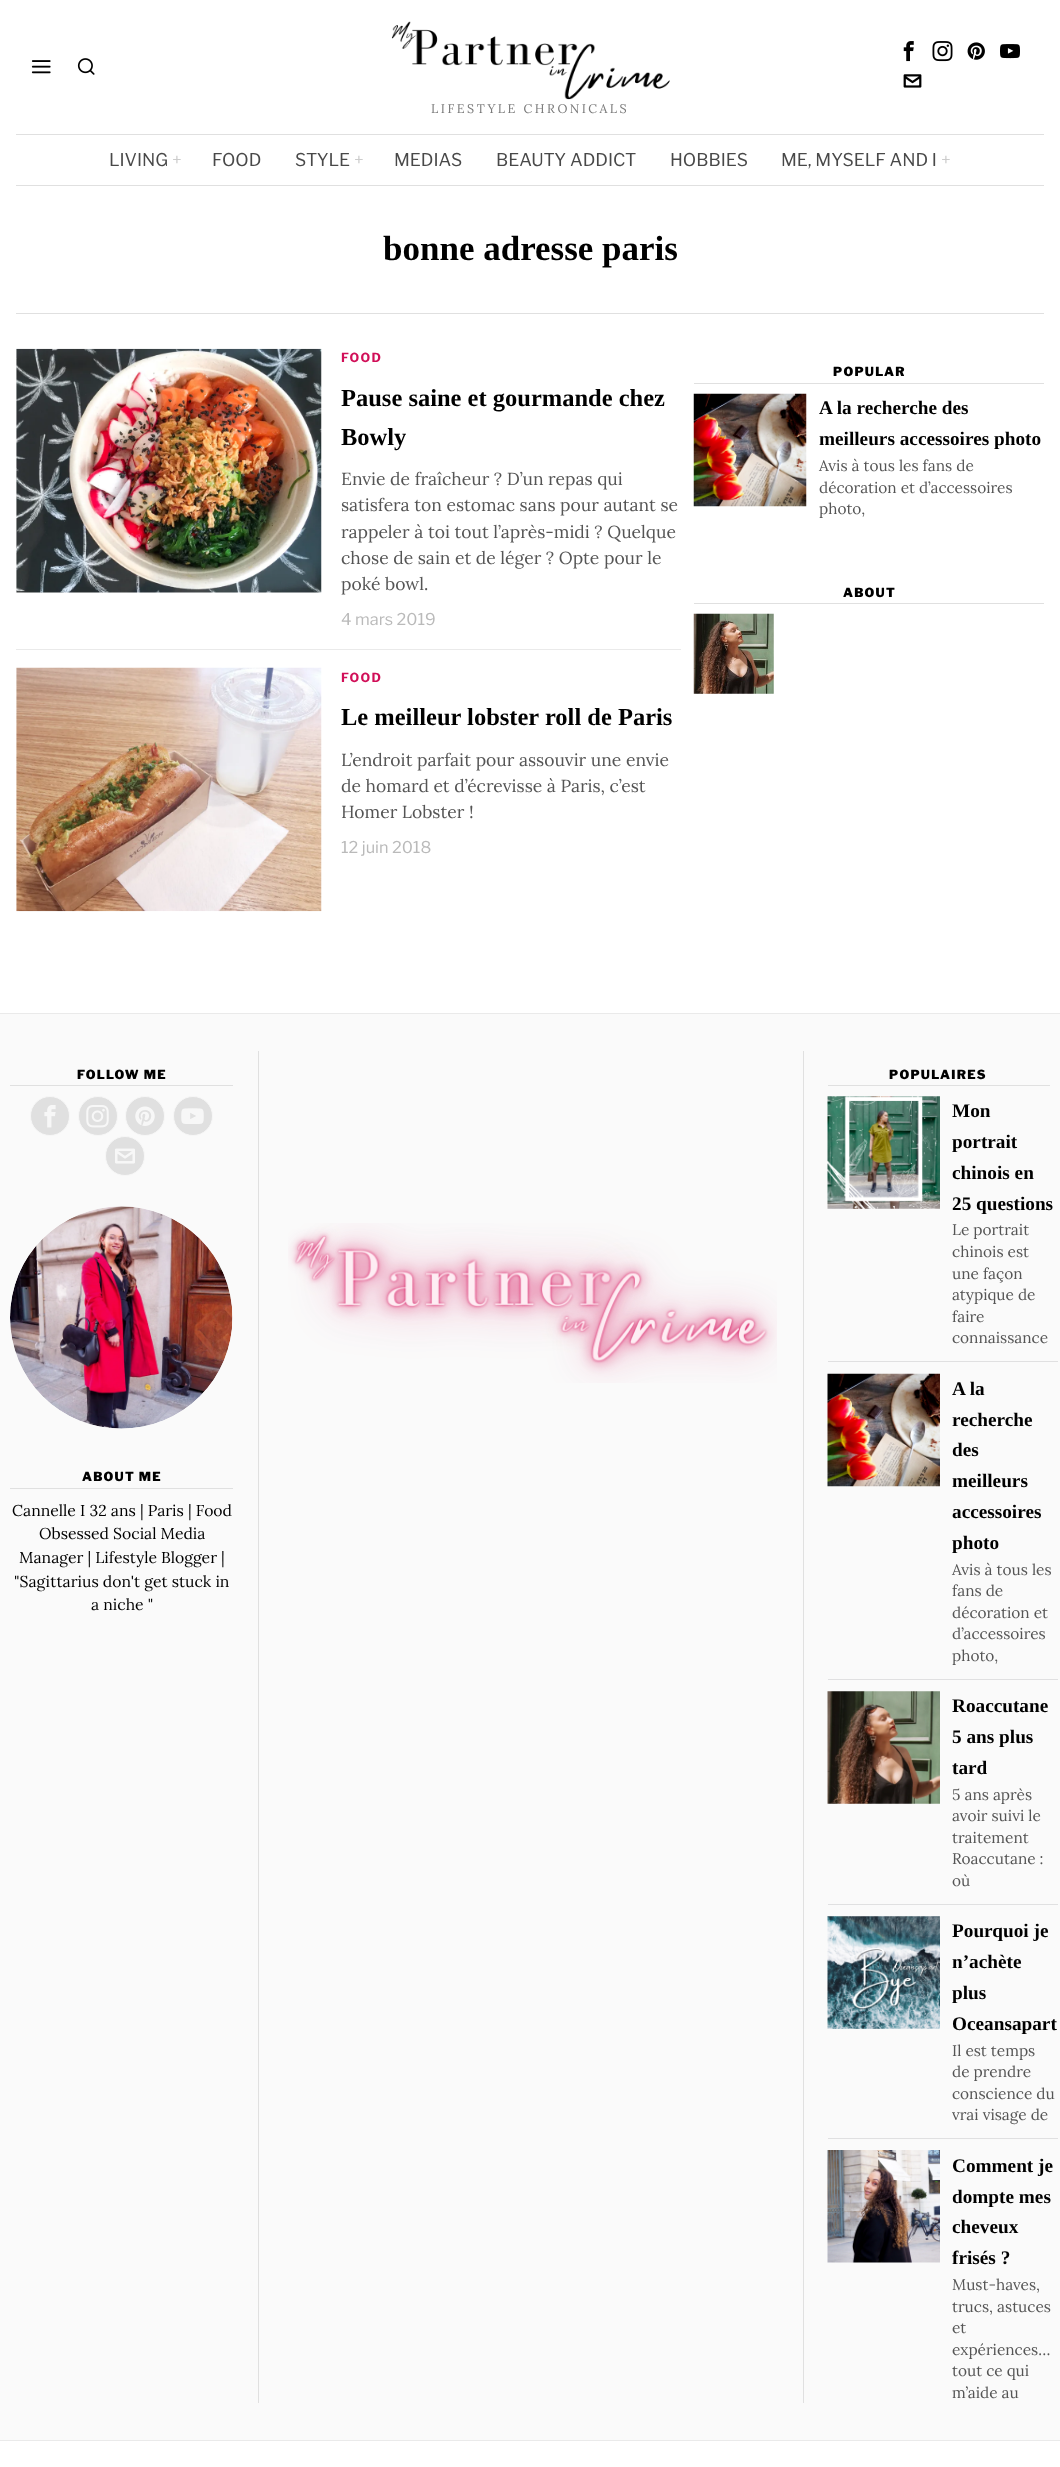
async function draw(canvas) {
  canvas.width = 1060
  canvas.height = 2467
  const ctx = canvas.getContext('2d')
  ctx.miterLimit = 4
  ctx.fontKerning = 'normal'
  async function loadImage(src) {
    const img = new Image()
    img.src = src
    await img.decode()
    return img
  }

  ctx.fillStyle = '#fff'
  ctx.fillRect(0, 0, 1060, 2467)
  ctx.drawImage(await loadImage('image0.png'), 31, 60, 20, 14)
  ctx.drawImage(await loadImage('image1.png'), 77, 58, 18, 17)
  ctx.drawImage(await loadImage('image2.png'), 903, 41, 11, 21)
  ctx.drawImage(await loadImage('image3.png'), 932, 41, 21, 21)
  ctx.drawImage(await loadImage('image4.png'), 967, 42, 18, 18)
  ctx.drawImage(await loadImage('image5.png'), 1000, 44, 20, 15)
  ctx.drawImage(await loadImage('image6.png'), 903, 74, 19, 14)
  ctx.drawImage(await loadImage('image7.png'), 391, 21, 279, 79)
  ctx.letterSpacing = '2.5px'
  ctx.font = '12.5px Lora'
  ctx.fillStyle = '#797979'
  ctx.fillText('LIFESTYLE CHRONICALS', 431, 113)
  ctx.fillStyle = '#e0e0e0'
  ctx.fillRect(16, 134, 1028, 1)
  ctx.fillRect(16, 185, 1028, 1)
  ctx.letterSpacing = '0px'
  ctx.font = '17.5px Libre Franklin'
  ctx.fillStyle = '#494949'
  ctx.fillText('LIVING', 109, 166)
  ctx.fillStyle = '#ccc'
  ctx.fillText('+', 172, 166)
  ctx.fillStyle = '#494949'
  ctx.fillText('FOOD', 212, 166)
  ctx.fillText('STYLE', 295, 166)
  ctx.fillStyle = '#ccc'
  ctx.fillText('+', 354, 166)
  ctx.fillStyle = '#494949'
  ctx.fillText('MEDIAS', 394, 166)
  ctx.fillText('BEAUTY ADDICT', 496, 166)
  ctx.fillText('HOBBIES', 670, 166)
  ctx.fillText('ME, MYSELF AND I', 781, 166)
  ctx.fillStyle = '#ccc'
  ctx.fillText('+', 941, 166)
  ctx.fillStyle = '#e0e0e0'
  ctx.fillRect(16, 313, 1028, 1)
  ctx.font = 'bold 35px Liberation Serif'
  ctx.fillStyle = '#000'
  ctx.fillText('bonne adresse paris', 383, 260)
  ctx.drawImage(await loadImage('image8.png'), 16, 348, 306, 245)
  ctx.letterSpacing = '1.25px'
  ctx.font = 'bold 12.5px Libre Franklin'
  ctx.fillStyle = '#d10f58'
  ctx.fillText('FOOD', 341, 362)
  ctx.letterSpacing = '0px'
  ctx.font = 'bold 24.5px Liberation Serif'
  ctx.fillStyle = '#000'
  ctx.fillText('Pause saine et gourmande chez', 341, 406)
  ctx.fillText('Bowly', 341, 445)
  ctx.font = '17.5px Lora'
  ctx.fillStyle = '#555'
  ctx.fillText('Envie de fraîcheur ? D’un repas qui', 341, 485)
  ctx.fillText('satisfera ton estomac sans pour autant se', 341, 511)
  ctx.fillText('rappeler à toi tout l’après-midi ? Quelque', 341, 538)
  ctx.fillText('chose de sain et de léger ? Opte pour le', 341, 564)
  ctx.fillText('poké bowl.', 341, 590)
  ctx.font = '16.25px Libre Franklin'
  ctx.fillStyle = '#bababa'
  ctx.fillText('4 mars 2019', 341, 625)
  ctx.fillStyle = '#eaeaea'
  ctx.fillRect(16, 649, 665, 1)
  ctx.drawImage(await loadImage('image9.png'), 16, 667, 306, 245)
  ctx.letterSpacing = '1.25px'
  ctx.font = 'bold 12.5px Libre Franklin'
  ctx.fillStyle = '#d10f58'
  ctx.fillText('FOOD', 341, 682)
  ctx.letterSpacing = '0px'
  ctx.font = 'bold 24.5px Liberation Serif'
  ctx.fillStyle = '#000'
  ctx.fillText('Le meilleur lobster roll de Paris', 341, 725)
  ctx.font = '17.5px Lora'
  ctx.fillStyle = '#555'
  ctx.fillText('L’endroit parfait pour assouvir une envie', 341, 766)
  ctx.fillText('de homard et d’écrevisse à Paris, c’est', 341, 792)
  ctx.fillText('Homer Lobster !', 341, 818)
  ctx.font = '16.25px Libre Franklin'
  ctx.fillStyle = '#bababa'
  ctx.fillText('12 juin 2018', 341, 853)
  ctx.fillStyle = '#e0e0e0'
  ctx.fillRect(694, 383, 350, 1)
  ctx.letterSpacing = '1.25px'
  ctx.font = '900 12.5px Libre Franklin'
  ctx.fillStyle = '#000'
  ctx.fillText('POPULAR', 833, 376)
  ctx.drawImage(await loadImage('image10.png'), 693, 393, 114, 114)
  ctx.letterSpacing = '0px'
  ctx.font = 'bold 19.25px Liberation Serif'
  ctx.fillText('A la recherche des', 819, 414)
  ctx.fillText('meilleurs accessoires photo', 819, 445)
  ctx.font = '15.4px Lora'
  ctx.fillStyle = '#555'
  ctx.fillText('Avis à tous les fans de', 819, 471)
  ctx.fillText('décoration et d’accessoires', 819, 493)
  ctx.fillText('photo,', 819, 514)
  ctx.fillStyle = '#e0e0e0'
  ctx.fillRect(694, 603, 350, 1)
  ctx.letterSpacing = '1.25px'
  ctx.font = '900 12.5px Libre Franklin'
  ctx.fillStyle = '#000'
  ctx.fillText('ABOUT', 843, 597)
  ctx.drawImage(await loadImage('image11.png'), 693, 613, 81, 81)
  ctx.fillStyle = '#fafafa'
  ctx.fillRect(0, 1014, 1060, 1426)
  ctx.fillStyle = '#eaeaea'
  ctx.fillRect(0, 1013, 1060, 1)
  ctx.fillStyle = '#e0e0e0'
  ctx.fillRect(10, 1085, 223, 1)
  ctx.fillStyle = '#000'
  ctx.fillText('FOLLOW ME', 77, 1079)
  ctx.fillStyle = '#e0e0e0'
  ctx.beginPath()
  ctx.arc(50, 1116, 19.5, 0, 2 * Math.PI)
  ctx.fill()
  ctx.strokeStyle = '#f7f7f7'
  ctx.stroke()
  ctx.drawImage(await loadImage('image12.png'), 44, 1105, 12, 23)
  ctx.beginPath()
  ctx.arc(98, 1116, 19.5, 0, 2 * Math.PI)
  ctx.fill()
  ctx.stroke()
  ctx.drawImage(await loadImage('image13.png'), 86, 1105, 23, 23)
  ctx.beginPath()
  ctx.arc(145, 1116, 19.5, 0, 2 * Math.PI)
  ctx.fill()
  ctx.stroke()
  ctx.drawImage(await loadImage('image14.png'), 135, 1106, 20, 20)
  ctx.beginPath()
  ctx.arc(193, 1116, 19.5, 0, 2 * Math.PI)
  ctx.fill()
  ctx.stroke()
  ctx.drawImage(await loadImage('image15.png'), 181, 1108, 23, 16)
  ctx.beginPath()
  ctx.arc(125, 1156, 19.5, 0, 2 * Math.PI)
  ctx.fill()
  ctx.stroke()
  ctx.drawImage(await loadImage('image16.png'), 115, 1148, 20, 16)
  ctx.drawImage(await loadImage('image17.png'), 10, 1206, 223, 223)
  ctx.fillRect(10, 1488, 223, 1)
  ctx.fillStyle = '#000'
  ctx.fillText('ABOUT ME', 82, 1481)
  ctx.letterSpacing = '0px'
  ctx.font = '15.75px Lora'
  ctx.fillText('Cannelle I 32 ans | Paris | Food', 12, 1516)
  ctx.fillText('Obsessed Social Media', 39, 1539)
  ctx.fillText('Manager | Lifestyle Blogger |', 19, 1563)
  ctx.fillText('"Sagittarius don\'t get stuck in', 14, 1587)
  ctx.fillText('a niche "', 91, 1610)
  ctx.fillStyle = '#e0e0e0'
  ctx.fillRect(258, 1051, 1, 1352)
  ctx.drawImage(await loadImage('image18.png'), 288, 1223, 489, 160)
  ctx.fillRect(803, 1051, 1, 1352)
  ctx.fillRect(828, 1085, 222, 1)
  ctx.letterSpacing = '1.25px'
  ctx.font = '900 12.5px Libre Franklin'
  ctx.fillStyle = '#000'
  ctx.fillText('POPULAIRES', 889, 1079)
  ctx.drawImage(await loadImage('image19.png'), 827, 1096, 113, 113)
  ctx.letterSpacing = '0px'
  ctx.font = 'bold 19.25px Liberation Serif'
  ctx.fillText('Mon', 952, 1117)
  ctx.fillText('portrait', 952, 1148)
  ctx.fillText('chinois en', 952, 1179)
  ctx.fillText('25 questions', 952, 1210)
  ctx.font = '15.4px Lora'
  ctx.fillStyle = '#555'
  ctx.fillText('Le portrait', 952, 1235)
  ctx.fillText('chinois est', 952, 1257)
  ctx.fillText('une façon', 952, 1279)
  ctx.fillText('atypique de', 952, 1300)
  ctx.fillText('faire', 952, 1322)
  ctx.fillText('connaissance', 952, 1343)
  ctx.fillStyle = '#e0e0e1'
  ctx.fillRect(828, 1361, 230, 1)
  ctx.drawImage(await loadImage('image20.png'), 827, 1373, 113, 114)
  ctx.font = 'bold 19.25px Liberation Serif'
  ctx.fillStyle = '#000'
  ctx.fillText('A la', 952, 1395)
  ctx.fillText('recherche', 952, 1426)
  ctx.fillText('des', 952, 1456)
  ctx.fillText('meilleurs', 952, 1487)
  ctx.fillText('accessoires', 952, 1518)
  ctx.fillText('photo', 952, 1549)
  ctx.font = '15.4px Lora'
  ctx.fillStyle = '#555'
  ctx.fillText('Avis à tous les', 952, 1575)
  ctx.fillText('fans de', 952, 1596)
  ctx.fillText('décoration et', 952, 1618)
  ctx.fillText('d’accessoires', 952, 1639)
  ctx.fillText('photo,', 952, 1661)
  ctx.fillStyle = '#e0e0e1'
  ctx.fillRect(828, 1679, 230, 1)
  ctx.drawImage(await loadImage('image21.png'), 827, 1691, 113, 113)
  ctx.font = 'bold 19.25px Liberation Serif'
  ctx.fillStyle = '#000'
  ctx.fillText('Roaccutane', 952, 1712)
  ctx.fillText('5 ans plus', 952, 1743)
  ctx.fillText('tard', 952, 1774)
  ctx.font = '15.4px Lora'
  ctx.fillStyle = '#555'
  ctx.fillText('5 ans après', 952, 1800)
  ctx.fillText('avoir suivi le', 952, 1821)
  ctx.fillText('traitement', 952, 1843)
  ctx.fillText('Roaccutane :', 952, 1864)
  ctx.fillText('où', 952, 1886)
  ctx.fillStyle = '#e0e0e1'
  ctx.fillRect(828, 1904, 230, 1)
  ctx.drawImage(await loadImage('image22.png'), 827, 1916, 113, 113)
  ctx.font = 'bold 19.25px Liberation Serif'
  ctx.fillStyle = '#000'
  ctx.fillText('Pourquoi je', 952, 1937)
  ctx.fillText('n’achète', 952, 1968)
  ctx.fillText('plus', 952, 1999)
  ctx.fillText('Oceansapart', 952, 2030)
  ctx.font = '15.4px Lora'
  ctx.fillStyle = '#555'
  ctx.fillText('Il est temps', 952, 2056)
  ctx.fillText('de prendre', 952, 2077)
  ctx.fillText('conscience du', 952, 2099)
  ctx.fillText('vrai visage de', 952, 2120)
  ctx.fillStyle = '#e0e0e1'
  ctx.fillRect(828, 2138, 230, 1)
  ctx.drawImage(await loadImage('image23.png'), 827, 2150, 113, 113)
  ctx.font = 'bold 19.25px Liberation Serif'
  ctx.fillStyle = '#000'
  ctx.fillText('Comment je', 952, 2172)
  ctx.fillText('dompte mes', 952, 2203)
  ctx.fillText('cheveux', 952, 2233)
  ctx.fillText('frisés ?', 952, 2264)
  ctx.font = '15.4px Lora'
  ctx.fillStyle = '#555'
  ctx.fillText('Must-haves,', 952, 2290)
  ctx.fillText('trucs, astuces', 952, 2312)
  ctx.fillText('et', 952, 2333)
  ctx.fillText('expériences…', 952, 2355)
  ctx.fillText('tout ce qui', 952, 2376)
  ctx.fillText('m’aide au', 952, 2398)
  ctx.fillStyle = '#eaeaea'
  ctx.fillRect(0, 2440, 1060, 1)
}

draw(document.querySelector('canvas'))
